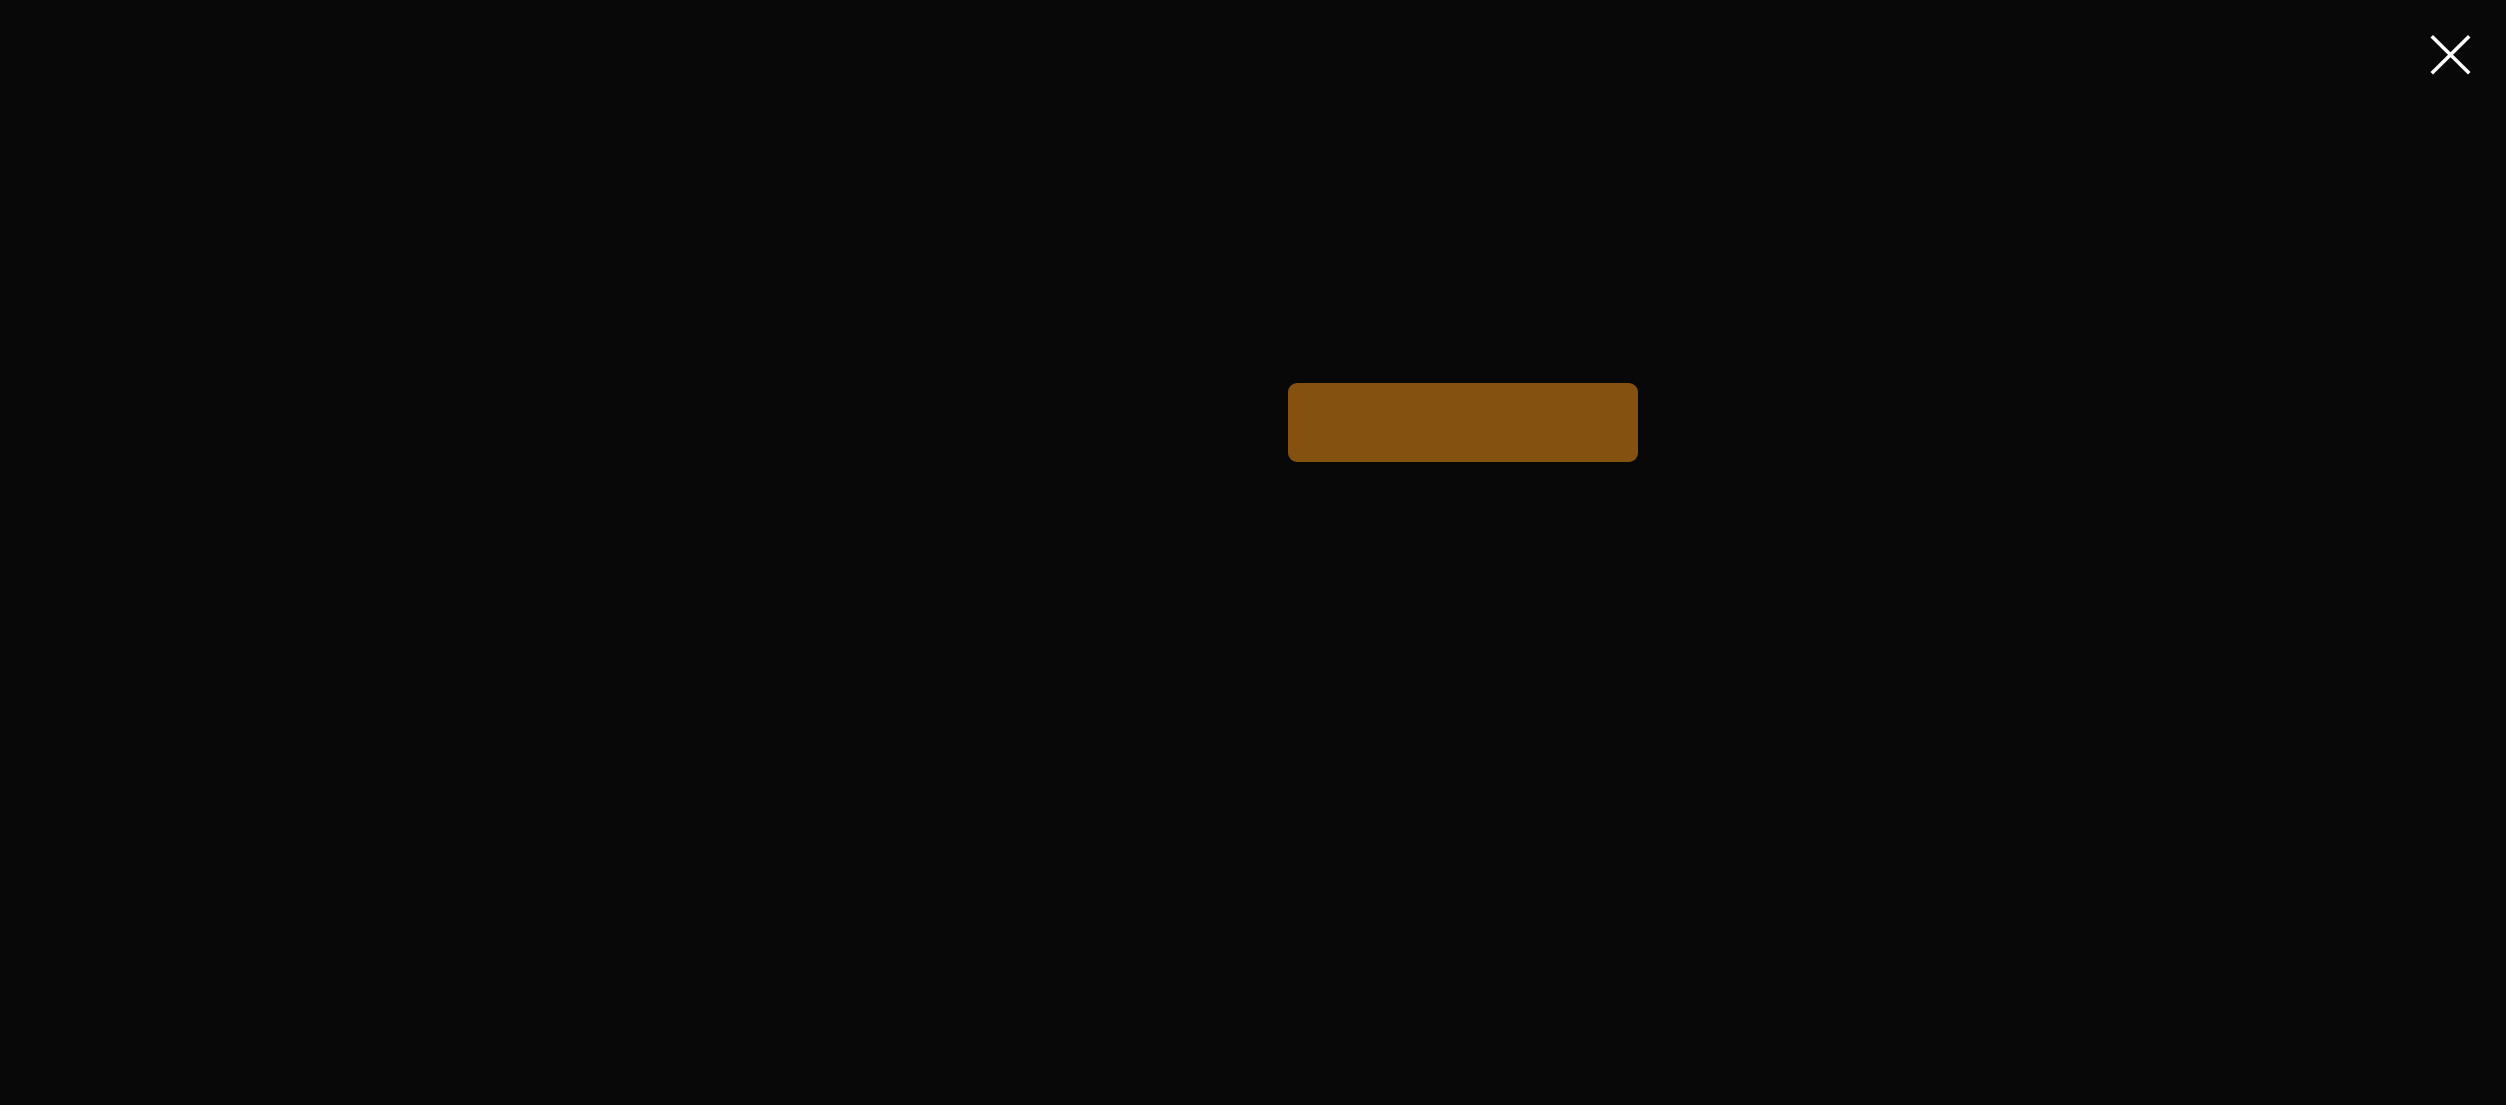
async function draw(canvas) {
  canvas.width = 2506
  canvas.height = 1105
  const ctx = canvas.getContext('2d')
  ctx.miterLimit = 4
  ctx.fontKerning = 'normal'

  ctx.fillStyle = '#080808'
  ctx.fillRect(0, 0, 2506, 1105)
  ctx.fillStyle = '#fff'
  ctx.beginPath()
  ctx.moveTo(2430.5, 37.5)
  ctx.lineTo(2433, 35)
  ctx.lineTo(2470.5, 72)
  ctx.lineTo(2468, 74.5)
  ctx.closePath()
  ctx.fill('evenodd')
  ctx.beginPath()
  ctx.moveTo(2468, 35)
  ctx.lineTo(2470.5, 37.5)
  ctx.lineTo(2433, 74.5)
  ctx.lineTo(2430.5, 72)
  ctx.closePath()
  ctx.fill('evenodd')
  ctx.fillStyle = '#845110'
  ctx.beginPath()
  ctx.roundRect(1288, 383, 350, 79, 9)
  ctx.fill()
}

draw(document.querySelector('canvas'))
